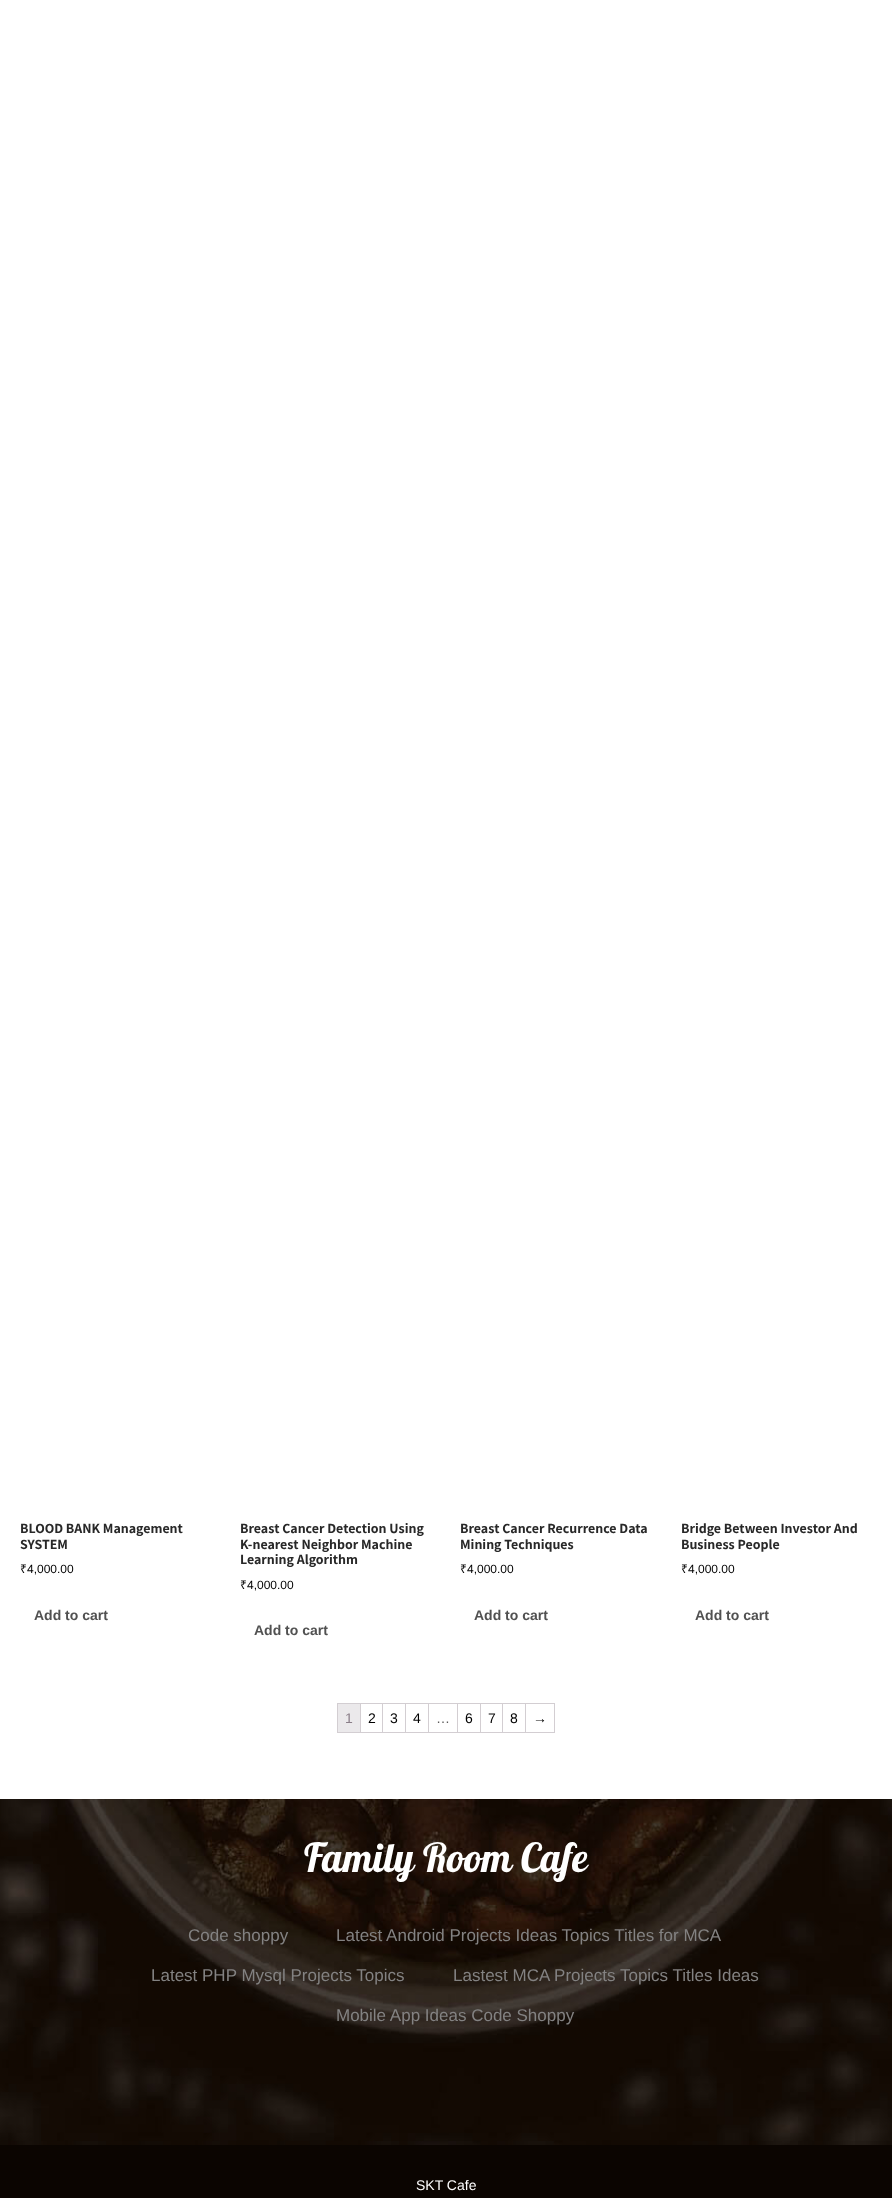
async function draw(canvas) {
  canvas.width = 892
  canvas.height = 2198
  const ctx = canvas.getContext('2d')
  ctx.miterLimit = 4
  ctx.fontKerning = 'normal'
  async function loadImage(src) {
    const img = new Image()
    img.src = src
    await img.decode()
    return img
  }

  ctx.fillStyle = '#fff'
  ctx.fillRect(0, 0, 892, 2198)
  ctx.font = 'bold 14px Assistant'
  ctx.fillStyle = '#282828'
  ctx.fillText('BLOOD BANK Management', 20, 1533)
  ctx.fillText('SYSTEM', 20, 1549)
  ctx.font = '12px Noto Sans'
  ctx.fillStyle = '#000'
  ctx.fillText('₹', 20, 1573)
  ctx.font = '12px Liberation Sans'
  ctx.fillText('4,000.00', 27, 1573)
  ctx.font = 'bold 14px Liberation Sans'
  ctx.fillStyle = '#515151'
  ctx.fillText('Add to cart', 34, 1620)
  ctx.font = 'bold 14px Assistant'
  ctx.fillStyle = '#282828'
  ctx.fillText('Breast Cancer Detection Using', 240, 1533)
  ctx.fillText('K-nearest Neighbor Machine', 240, 1549)
  ctx.fillText('Learning Algorithm', 240, 1564)
  ctx.font = '12px Noto Sans'
  ctx.fillStyle = '#000'
  ctx.fillText('₹', 240, 1589)
  ctx.font = '12px Liberation Sans'
  ctx.fillText('4,000.00', 247, 1589)
  ctx.font = 'bold 14px Liberation Sans'
  ctx.fillStyle = '#515151'
  ctx.fillText('Add to cart', 254, 1635)
  ctx.font = 'bold 14px Assistant'
  ctx.fillStyle = '#282828'
  ctx.fillText('Breast Cancer Recurrence Data', 460, 1533)
  ctx.fillText('Mining Techniques', 460, 1549)
  ctx.font = '12px Noto Sans'
  ctx.fillStyle = '#000'
  ctx.fillText('₹', 460, 1573)
  ctx.font = '12px Liberation Sans'
  ctx.fillText('4,000.00', 467, 1573)
  ctx.font = 'bold 14px Liberation Sans'
  ctx.fillStyle = '#515151'
  ctx.fillText('Add to cart', 474, 1620)
  ctx.font = 'bold 14px Assistant'
  ctx.fillStyle = '#282828'
  ctx.fillText('Bridge Between Investor And', 681, 1533)
  ctx.fillText('Business People', 681, 1549)
  ctx.font = '12px Noto Sans'
  ctx.fillStyle = '#000'
  ctx.fillText('₹', 681, 1573)
  ctx.font = '12px Liberation Sans'
  ctx.fillText('4,000.00', 688, 1573)
  ctx.font = 'bold 14px Liberation Sans'
  ctx.fillStyle = '#515151'
  ctx.fillText('Add to cart', 695, 1620)
  ctx.fillStyle = '#d3ced2'
  ctx.fillRect(337, 1703, 218, 1)
  ctx.fillRect(337, 1732, 218, 1)
  ctx.fillRect(337, 1703, 1, 30)
  ctx.fillRect(360, 1704, 1, 28)
  ctx.fillStyle = '#ebe9eb'
  ctx.fillRect(338, 1704, 22, 28)
  ctx.font = '14px Liberation Sans'
  ctx.fillStyle = '#8a7e88'
  ctx.fillText('1', 345, 1723)
  ctx.fillStyle = '#d3ced2'
  ctx.fillRect(382, 1704, 1, 28)
  ctx.fillStyle = '#000'
  ctx.fillText('2', 368, 1723)
  ctx.fillStyle = '#d3ced2'
  ctx.fillRect(405, 1704, 1, 28)
  ctx.fillStyle = '#000'
  ctx.fillText('3', 390, 1723)
  ctx.fillStyle = '#d3ced2'
  ctx.fillRect(428, 1704, 1, 28)
  ctx.fillStyle = '#000'
  ctx.fillText('4', 413, 1723)
  ctx.fillStyle = '#d3ced2'
  ctx.fillRect(457, 1704, 1, 28)
  ctx.fillStyle = '#5c5b5b'
  ctx.fillText('…', 436, 1723)
  ctx.fillStyle = '#d3ced2'
  ctx.fillRect(480, 1704, 1, 28)
  ctx.fillStyle = '#000'
  ctx.fillText('6', 465, 1723)
  ctx.fillStyle = '#d3ced2'
  ctx.fillRect(502, 1704, 1, 28)
  ctx.fillStyle = '#000'
  ctx.fillText('7', 488, 1723)
  ctx.fillStyle = '#d3ced2'
  ctx.fillRect(525, 1704, 1, 28)
  ctx.fillStyle = '#000'
  ctx.fillText('8', 510, 1723)
  ctx.fillStyle = '#d3ced2'
  ctx.fillRect(554, 1704, 1, 28)
  ctx.fillStyle = '#000'
  ctx.fillText('→', 533, 1723)
  ctx.drawImage(await loadImage('image0.png'), 0, 1799, 892, 346)
  ctx.font = '40px Pattaya'
  ctx.fillStyle = '#fff'
  ctx.fillText('Family Room Cafe', 304, 1872)
  ctx.font = '17px Liberation Sans'
  ctx.fillStyle = '#838282'
  ctx.fillText('Code shoppy', 188, 1941)
  ctx.fillText('Latest Android Projects Ideas Topics Titles for MCA', 336, 1941)
  ctx.fillText('Latest PHP Mysql Projects Topics', 151, 1981)
  ctx.fillText('Lastest MCA Projects Topics Titles Ideas', 453, 1981)
  ctx.fillText('Mobile App Ideas Code Shoppy', 336, 2021)
  ctx.fillStyle = '#0b0501'
  ctx.fillRect(0, 2145, 892, 53)
  ctx.font = '14px Liberation Sans'
  ctx.fillStyle = '#fff'
  ctx.fillText('SKT Cafe', 416, 2190)
}

draw(document.querySelector('canvas'))
